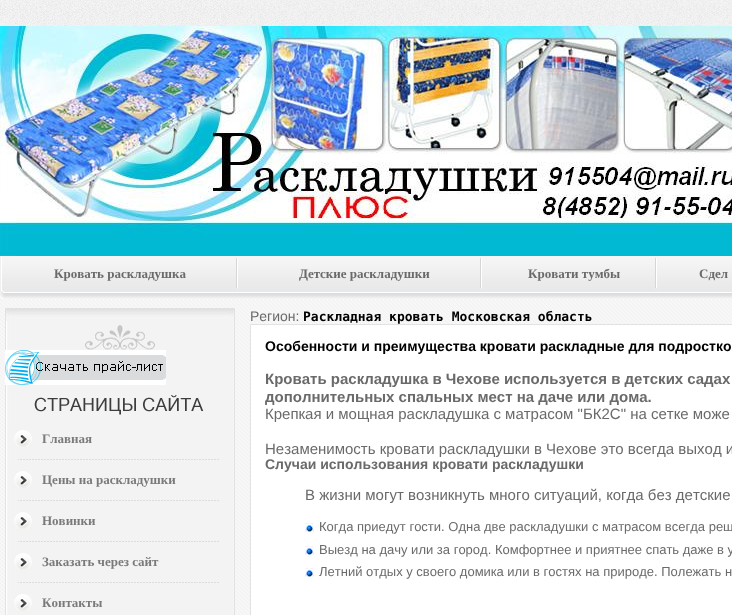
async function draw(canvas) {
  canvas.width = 732
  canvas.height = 615
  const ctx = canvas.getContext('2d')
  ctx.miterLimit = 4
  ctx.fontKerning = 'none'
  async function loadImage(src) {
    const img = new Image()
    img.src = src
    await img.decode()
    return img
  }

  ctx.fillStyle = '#fff'
  ctx.fillRect(0, 0, 732, 615)
  ctx.drawImage(await loadImage('image0.png'), 0, 0, 732, 26)
  ctx.drawImage(await loadImage('image1.png'), 0, 26, 732, 230)
  ctx.drawImage(await loadImage('image2.png'), 4, 256, 728, 43)
  ctx.drawImage(await loadImage('image3.png'), 0, 256, 4, 43)
  ctx.font = 'bold 13px Liberation Serif'
  ctx.fillStyle = '#6a6a6a'
  ctx.fillText('Кровать раскладушка', 54, 278)
  ctx.drawImage(await loadImage('image4.png'), 236, 258, 2, 31)
  ctx.fillText('Детские раскладушки', 299, 278)
  ctx.drawImage(await loadImage('image4.png'), 480, 258, 2, 31)
  ctx.fillText('Кровати тумбы', 528, 278)
  ctx.drawImage(await loadImage('image4.png'), 655, 258, 2, 31)
  ctx.fillText('Сдел', 699, 278)
  ctx.drawImage(await loadImage('image5.png'), 0, 299, 732, 316)
  ctx.drawImage(await loadImage('image6.png'), 5, 308, 230, 307)
  ctx.drawImage(await loadImage('image7.png'), 6, 308, 228, 13)
  ctx.drawImage(await loadImage('image8.png'), 85, 325, 70, 25)
  ctx.drawImage(await loadImage('image9.png'), 5, 350, 161, 35)
  ctx.drawImage(await loadImage('image10.png'), 34, 395, 170, 20)
  ctx.drawImage(await loadImage('image11.png'), 14, 430, 18, 17)
  ctx.fillStyle = '#7a7a7a'
  ctx.fillText('Главная', 42, 443)
  ctx.drawImage(await loadImage('image12.png'), 18, 459, 201, 1)
  ctx.drawImage(await loadImage('image11.png'), 14, 471, 18, 17)
  ctx.fillText('Цены на раскладушки', 42, 484)
  ctx.drawImage(await loadImage('image12.png'), 18, 500, 201, 1)
  ctx.drawImage(await loadImage('image11.png'), 14, 512, 18, 17)
  ctx.fillText('Новинки', 42, 525)
  ctx.drawImage(await loadImage('image12.png'), 18, 541, 201, 1)
  ctx.drawImage(await loadImage('image11.png'), 14, 553, 18, 17)
  ctx.fillText('Заказать через сайт', 42, 566)
  ctx.drawImage(await loadImage('image12.png'), 18, 582, 201, 1)
  ctx.drawImage(await loadImage('image11.png'), 14, 594, 18, 17)
  ctx.fillText('Контакты', 42, 607)
  ctx.font = '14px Liberation Sans'
  ctx.fillStyle = '#6a6a6a'
  ctx.fillText('Регион:', 250, 321)
  ctx.font = 'bold 13px DejaVu Sans Mono'
  ctx.fillStyle = '#000'
  ctx.fillText('Раскладная кровать Московская область', 303, 321)
  ctx.fillStyle = '#fff'
  ctx.beginPath()
  ctx.rect(250.5, 324.5, 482, 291)
  ctx.fill()
  ctx.strokeStyle = '#e2e2e2'
  ctx.stroke()
  ctx.font = 'bold 14px Liberation Sans'
  ctx.fillStyle = '#000'
  ctx.fillText('Особенности и преимущества кровати раскладные для подростко', 265, 351)
  ctx.font = 'bold 15px Liberation Sans'
  ctx.fillStyle = '#6a6a6a'
  ctx.fillText('Кровать раскладушка в Чехове используется в детских садах', 265, 384)
  ctx.fillText('дополнительных спальных мест на даче или дома.', 265, 402)
  ctx.font = '15px Liberation Sans'
  ctx.fillText('Крепкая и мощная раскладушка с матрасом "БК2С" на сетке може', 265, 419)
  ctx.fillText('Незаменимость кровати раскладушки в Чехове это всегда выход и', 265, 454)
  ctx.font = 'bold 14px Liberation Sans'
  ctx.fillText('Случаи использования кровати раскладушки', 265, 469)
  ctx.font = '15px Liberation Sans'
  ctx.fillText('В жизни могут возникнуть много ситуаций, когда без детские', 305, 500)
  ctx.drawImage(await loadImage('image13.png'), 305, 523, 9, 11)
  ctx.font = '13px Liberation Sans'
  ctx.fillText('Когда приедут гости. Одна две раскладушки с матрасом всегда реш', 319, 531)
  ctx.drawImage(await loadImage('image13.png'), 305, 546, 9, 11)
  ctx.fillText('Выезд на дачу или за город. Комфортнее и приятнее спать даже в у', 319, 554)
  ctx.drawImage(await loadImage('image13.png'), 305, 568, 9, 11)
  ctx.fillText('Летний отдых у своего домика или в гостях на природе. Полежать н', 319, 576)
}

draw(document.querySelector('canvas'))
